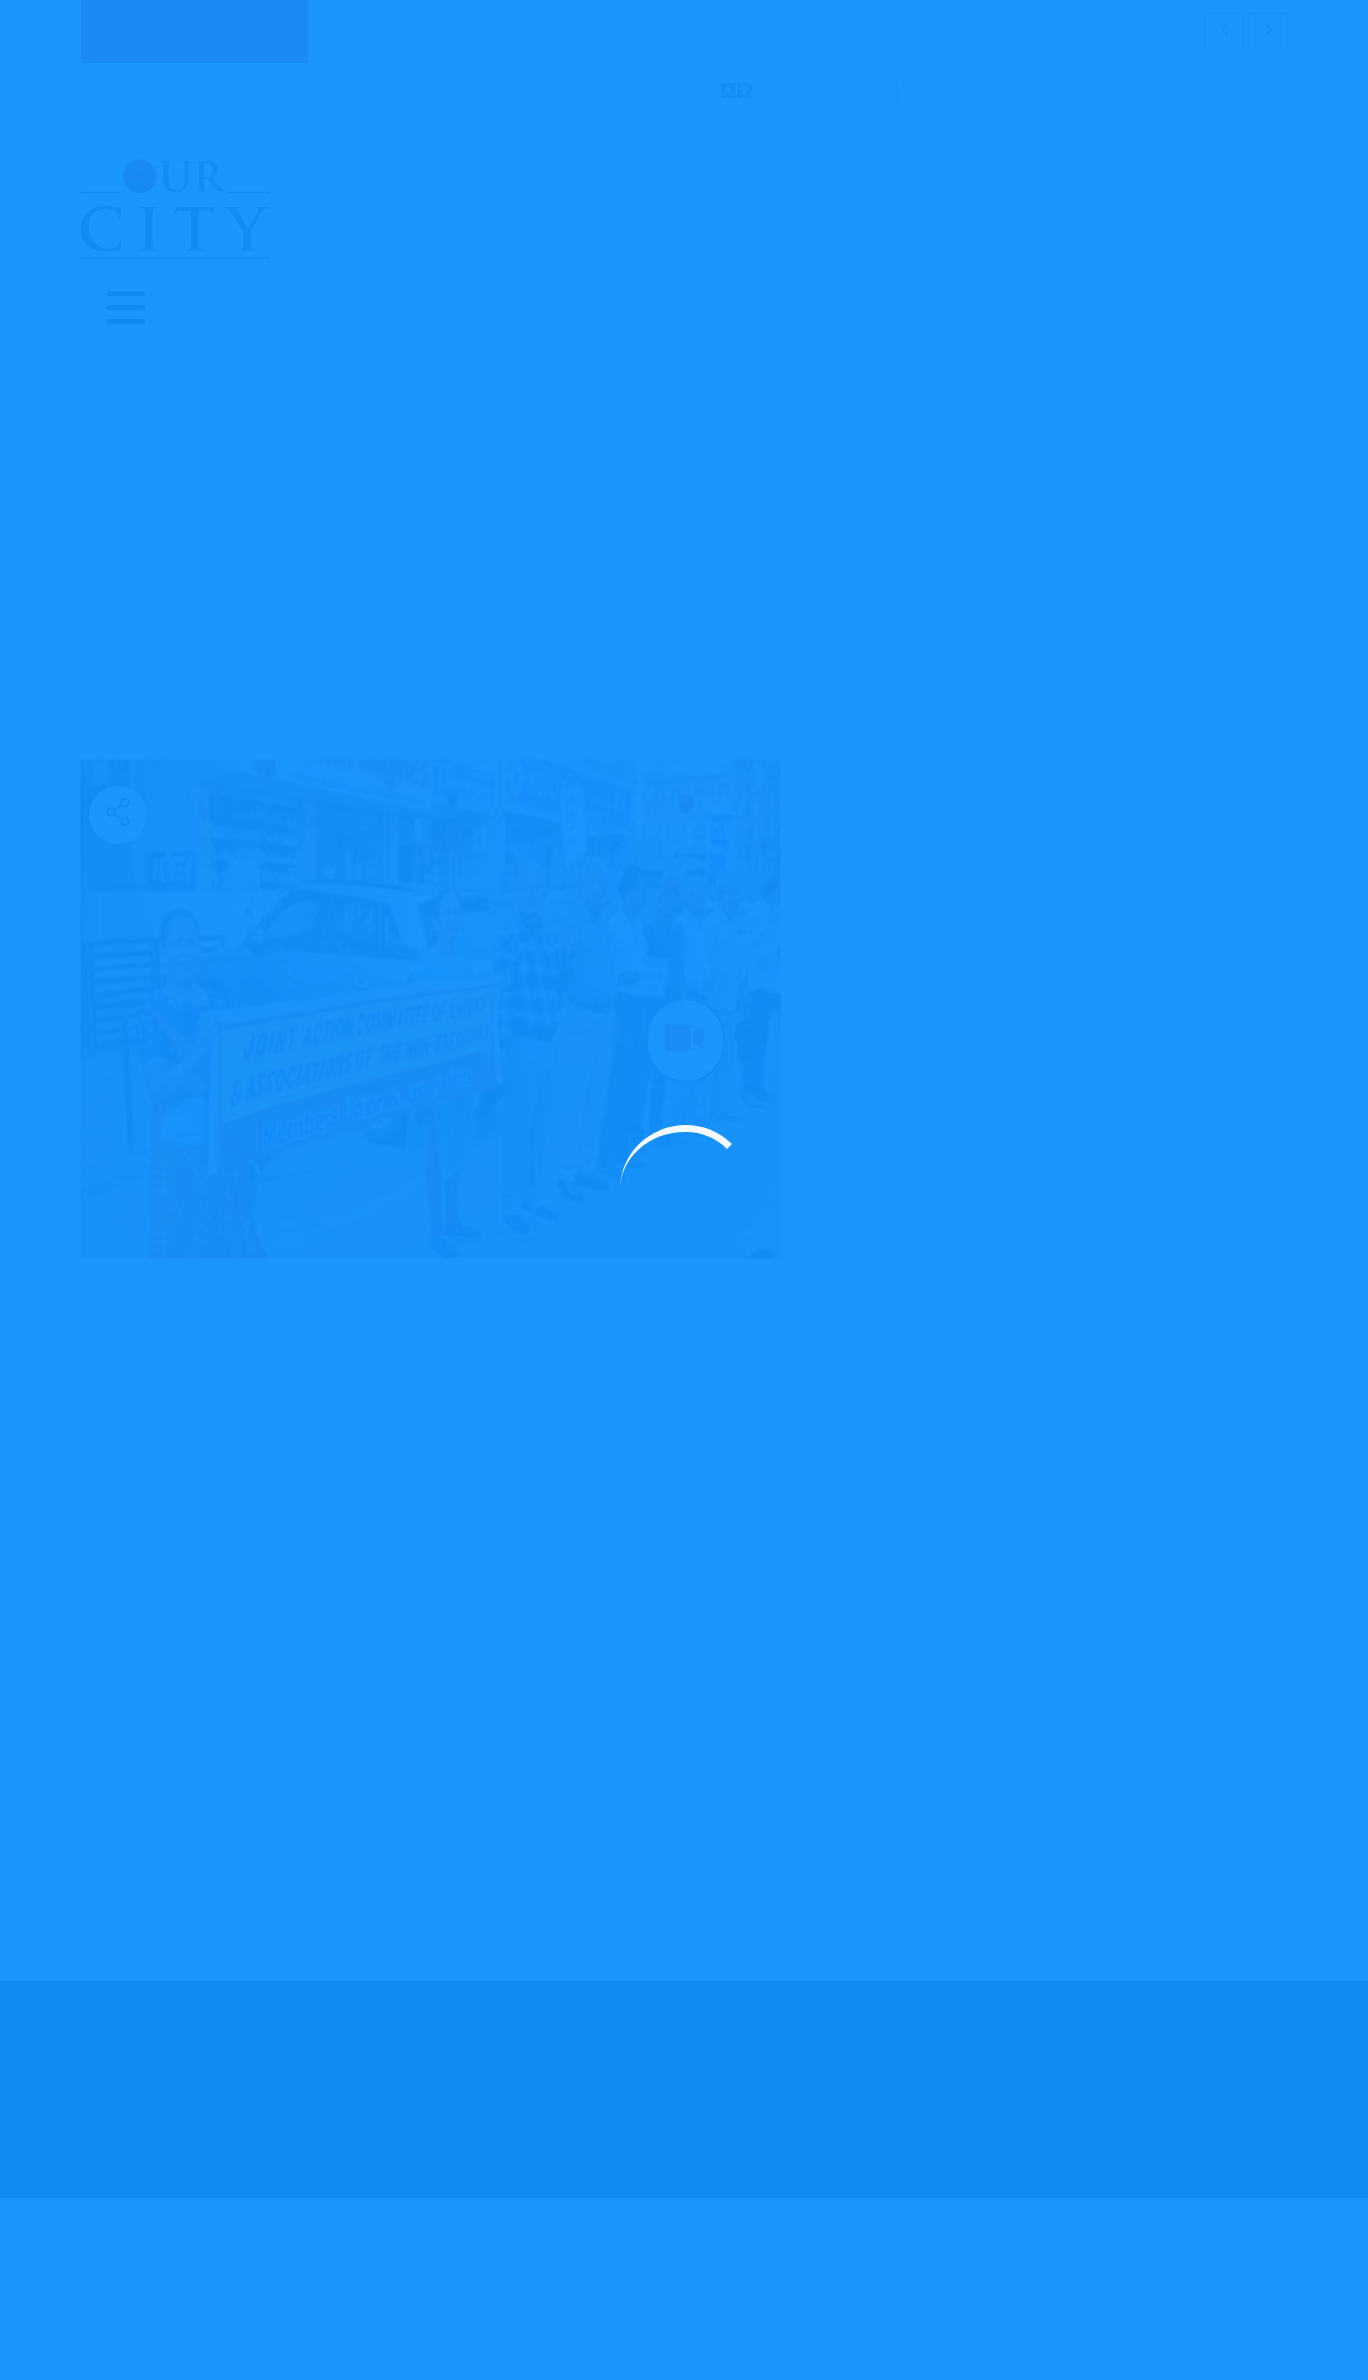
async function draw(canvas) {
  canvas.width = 1368
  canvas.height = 2380
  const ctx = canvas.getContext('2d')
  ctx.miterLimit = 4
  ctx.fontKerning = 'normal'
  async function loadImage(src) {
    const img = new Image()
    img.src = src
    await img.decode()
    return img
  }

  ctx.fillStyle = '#1c96ff'
  ctx.fillRect(0, 0, 1368, 2380)
  ctx.fillStyle = '#1b8af4'
  ctx.fillRect(81, 0, 227, 63)
  ctx.strokeStyle = '#1994fc'
  ctx.lineWidth = 2
  ctx.strokeRect(1205, 13, 38, 39)
  ctx.drawImage(await loadImage('image0.png'), 1220, 23, 9, 14)
  ctx.strokeRect(1249, 13, 38, 39)
  ctx.drawImage(await loadImage('image1.png'), 1264, 23, 9, 14)
  ctx.drawImage(await loadImage('image2.png'), 721, 82, 31, 17)
  ctx.fillStyle = '#1893fc'
  ctx.fillRect(896, 81, 2, 24)
  ctx.drawImage(await loadImage('image3.png'), 80, 159, 190, 100)
  ctx.fillStyle = '#0f8af2'
  ctx.beginPath()
  ctx.roundRect(107, 291, 38, 5, 2.5)
  ctx.fill()
  ctx.beginPath()
  ctx.roundRect(107, 305, 38, 5, 2.5)
  ctx.fill()
  ctx.beginPath()
  ctx.roundRect(107, 319, 38, 5, 2.5)
  ctx.fill()
  ctx.drawImage(await loadImage('image4.png'), 80, 759, 701, 500)
  ctx.fillStyle = '#1b96fe'
  ctx.beginPath()
  ctx.arc(118, 815, 29, 0, 2 * Math.PI)
  ctx.fill()
  ctx.drawImage(await loadImage('image5.png'), 106, 798, 24, 28)
  ctx.fillStyle = '#1c97ffcc'
  ctx.beginPath()
  ctx.roundRect(646, 998, 79, 85, 39.5)
  ctx.fill()
  ctx.beginPath()
  ctx.roundRect(647, 999, 77, 83, 38.5)
  ctx.strokeStyle = '#0f8af2cc'
  ctx.stroke()
  ctx.drawImage(await loadImage('image6.png'), 664, 1024, 40, 27)
  ctx.fillStyle = '#fffffff2'
  ctx.beginPath()
  ctx.moveTo(685, 1132)
  ctx.bezierCurveTo(649, 1132, 620, 1158, 620, 1191)
  ctx.bezierCurveTo(620, 1131, 691, 1104, 732, 1144)
  ctx.lineTo(727, 1149)
  ctx.bezierCurveTo(716, 1138, 702, 1132, 685, 1132)
  ctx.closePath()
  ctx.fill()
  ctx.fillStyle = '#118cf5'
  ctx.fillRect(0, 1981, 1368, 217)
}

draw(document.querySelector('canvas'))
